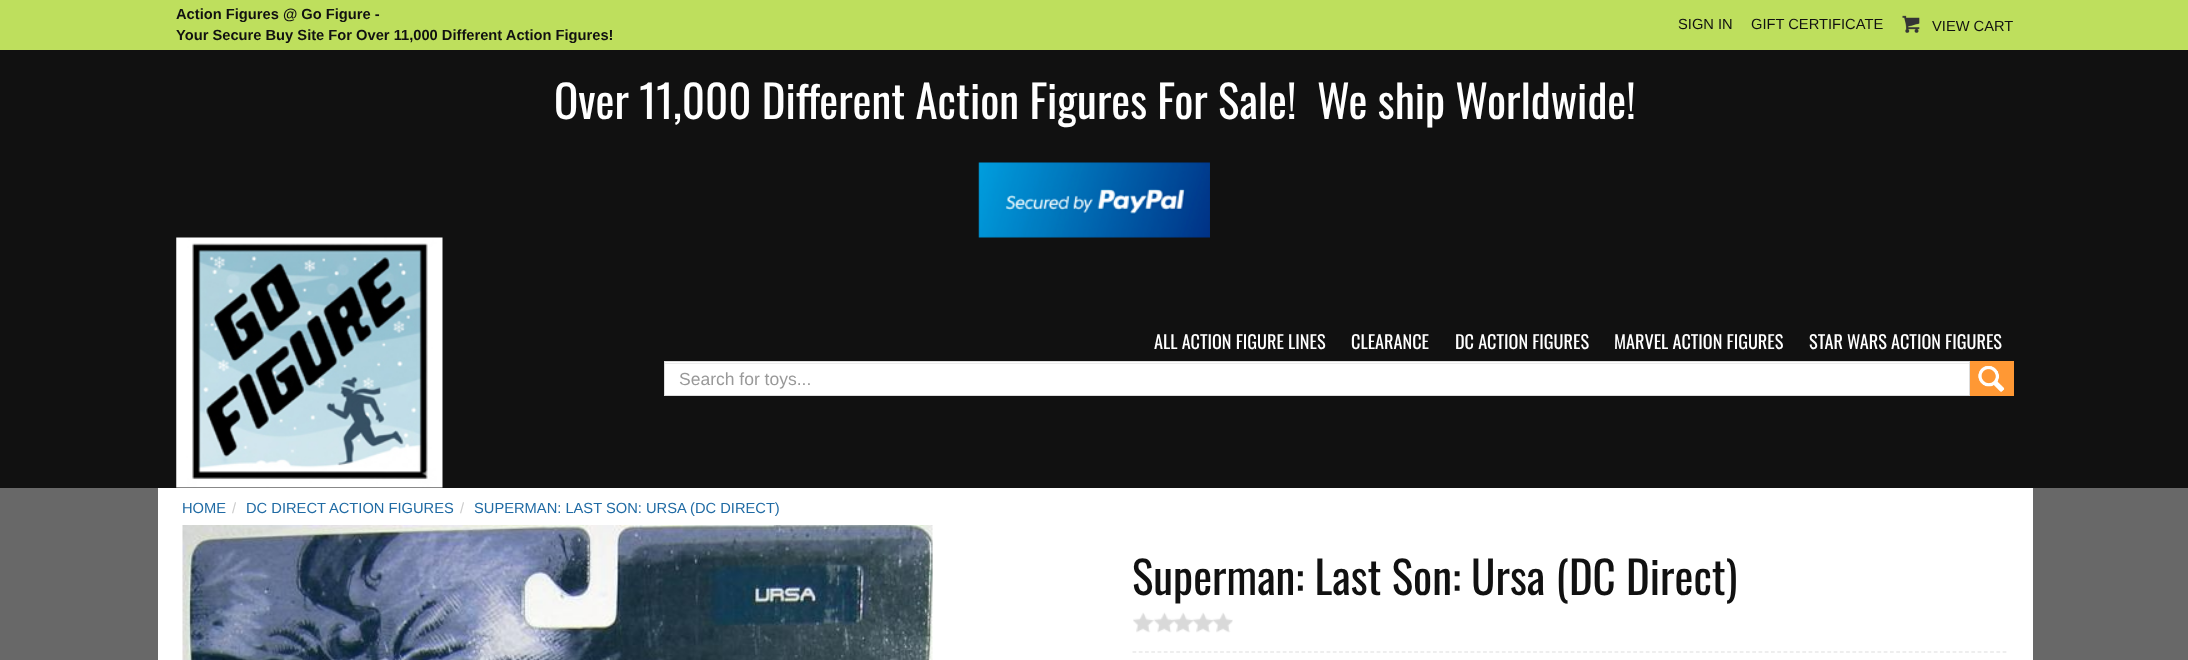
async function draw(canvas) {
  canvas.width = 2188
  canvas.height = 660
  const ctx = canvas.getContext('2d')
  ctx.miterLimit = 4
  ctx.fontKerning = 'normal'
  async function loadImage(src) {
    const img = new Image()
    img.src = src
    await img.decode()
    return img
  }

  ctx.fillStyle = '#686868'
  ctx.fillRect(0, 0, 2188, 660)
  ctx.fillStyle = '#111'
  ctx.fillRect(0, 50, 2188, 438)
  ctx.fillStyle = '#bedf5d'
  ctx.fillRect(0, 0, 2188, 50)
  ctx.font = 'bold 14.7px Liberation Sans'
  ctx.fillStyle = '#111'
  ctx.fillText('Action Figures @ Go Figure -', 176, 19)
  ctx.fillText('Your Secure Buy Site For Over 11,000 Different Action Figures!', 176, 40)
  ctx.font = '14.7px Liberation Sans'
  ctx.fillText('SIGN IN', 1678, 29)
  ctx.fillText('GIFT CERTIFICATE', 1751, 29)
  ctx.drawImage(await loadImage('image0.png'), 1902, 15, 18, 18)
  ctx.fillText('VIEW CART', 1932, 31)
  ctx.font = '45px Oswald'
  ctx.fillStyle = '#fff'
  ctx.fillText('Over 11,000 Different Action Figures For Sale!  We ship Worldwide!', 554, 119)
  ctx.drawImage(await loadImage('image1.png'), 978, 162, 232, 76)
  ctx.drawImage(await loadImage('image2.png'), 176, 237, 267, 251)
  ctx.font = '18.25px Oswald'
  ctx.fillText('ALL ACTION FIGURE LINES', 1154, 349)
  ctx.fillText('CLEARANCE', 1351, 349)
  ctx.fillText('DC ACTION FIGURES', 1455, 349)
  ctx.fillText('MARVEL ACTION FIGURES', 1614, 349)
  ctx.fillText('STAR WARS ACTION FIGURES', 1809, 349)
  ctx.fillRect(665, 362, 1304, 33)
  ctx.fillStyle = '#ececec'
  ctx.fillRect(665, 363, 1304, 1)
  ctx.strokeStyle = '#ddd'
  ctx.strokeRect(664.5, 361.5, 1305, 34)
  ctx.font = '17.5px Liberation Sans'
  ctx.fillStyle = '#999'
  ctx.fillText('Search for toys...', 679, 385)
  ctx.fillStyle = '#ff9834'
  ctx.fillRect(1970, 361, 44, 35)
  ctx.drawImage(await loadImage('image3.png'), 1978, 366, 27, 26)
  ctx.fillStyle = '#fff'
  ctx.fillRect(158, 488, 1875, 172)
  ctx.font = '14.7px Liberation Sans'
  ctx.fillStyle = '#206ba4'
  ctx.fillText('HOME', 182, 513)
  ctx.fillStyle = '#ccc'
  ctx.fillText('/', 232, 513)
  ctx.fillStyle = '#206ba4'
  ctx.fillText('DC DIRECT ACTION FIGURES', 246, 513)
  ctx.fillStyle = '#ccc'
  ctx.fillText('/', 460, 513)
  ctx.fillStyle = '#206ba4'
  ctx.fillText('SUPERMAN: LAST SON: URSA (DC DIRECT)', 474, 513)
  ctx.drawImage(await loadImage('image4.png'), 182, 525, 751, 135)
  ctx.font = '45px Oswald'
  ctx.fillStyle = '#111'
  ctx.fillText('Superman: Last Son: Ursa (DC Direct)', 1132, 595)
  ctx.drawImage(await loadImage('image5.png'), 1133, 612, 100, 21)
  ctx.beginPath()
  ctx.moveTo(1132.5, 652)
  ctx.lineTo(2007.5, 652)
  ctx.lineWidth = 1.2
  ctx.setLineDash([3.75, 2.51])
  ctx.stroke()
}

draw(document.querySelector('canvas'))
